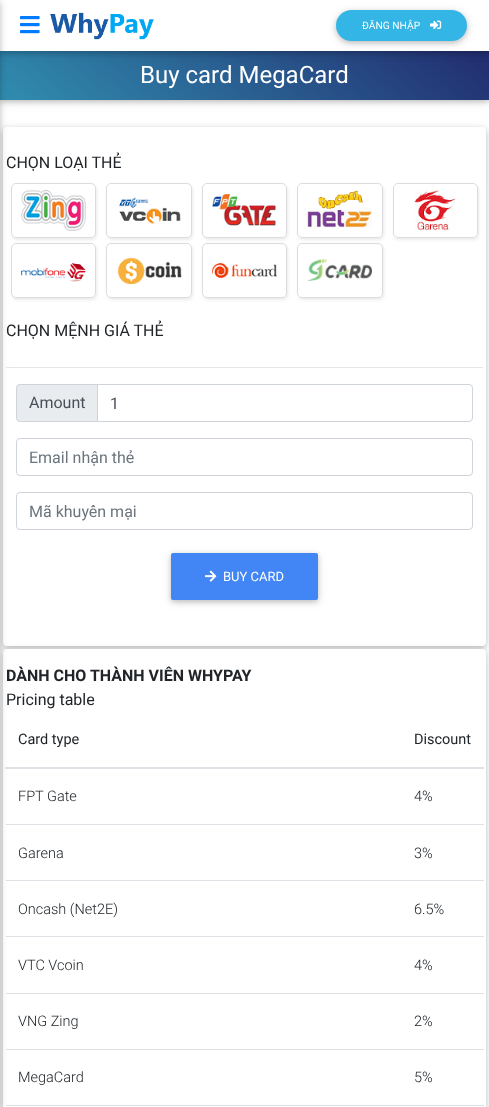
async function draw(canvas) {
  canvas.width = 489
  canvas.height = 1107
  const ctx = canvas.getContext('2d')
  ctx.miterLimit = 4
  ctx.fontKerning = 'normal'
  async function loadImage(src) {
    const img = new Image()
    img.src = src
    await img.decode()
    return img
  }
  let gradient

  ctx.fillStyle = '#fff'
  ctx.fillRect(0, 0, 489, 1107)
  ctx.fillStyle = '#0000001f'
  ctx.filter = 'blur(5px)'
  ctx.beginPath()
  ctx.rect(0, 53, 489, 49)
  ctx.fill()
  ctx.filter = 'none'
  ctx.fillStyle = '#00000029'
  ctx.filter = 'blur(2.5px)'
  ctx.beginPath()
  ctx.rect(0, 53, 489, 49)
  ctx.fill()
  ctx.filter = 'none'
  gradient = ctx.createLinearGradient(131, 210, 358, -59)
  gradient.addColorStop(0, '#308db0')
  gradient.addColorStop(1, '#222c6f')
  ctx.fillStyle = gradient
  ctx.fillRect(0, 51, 489, 49)
  ctx.fillStyle = '#0000001f'
  ctx.filter = 'blur(5px)'
  ctx.beginPath()
  ctx.rect(0, 2, 489, 51)
  ctx.fill()
  ctx.filter = 'none'
  ctx.fillStyle = '#00000029'
  ctx.filter = 'blur(2.5px)'
  ctx.beginPath()
  ctx.rect(0, 2, 489, 51)
  ctx.fill()
  ctx.filter = 'none'
  ctx.fillStyle = '#fff'
  ctx.fillRect(0, 0, 489, 51)
  ctx.fillStyle = '#0000001f'
  ctx.filter = 'blur(5px)'
  ctx.beginPath()
  ctx.roundRect(3, 129, 483, 519, 4)
  ctx.fill()
  ctx.filter = 'none'
  ctx.fillStyle = '#00000029'
  ctx.filter = 'blur(2.5px)'
  ctx.beginPath()
  ctx.roundRect(3, 129, 483, 519, 4)
  ctx.fill()
  ctx.filter = 'none'
  ctx.fillStyle = '#fff'
  ctx.beginPath()
  ctx.roundRect(3, 127, 483, 519, 4)
  ctx.fill()
  ctx.save()
  ctx.beginPath()
  ctx.moveTo(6, 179)
  ctx.lineTo(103, 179)
  ctx.lineTo(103, 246)
  ctx.lineTo(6, 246)
  ctx.closePath()
  ctx.moveTo(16, 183)
  ctx.lineTo(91, 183)
  ctx.bezierCurveTo(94, 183, 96, 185, 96, 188)
  ctx.lineTo(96, 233)
  ctx.bezierCurveTo(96, 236, 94, 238, 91, 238)
  ctx.lineTo(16, 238)
  ctx.bezierCurveTo(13, 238, 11, 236, 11, 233)
  ctx.lineTo(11, 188)
  ctx.bezierCurveTo(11, 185, 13, 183, 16, 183)
  ctx.closePath()
  ctx.clip('evenodd')
  ctx.fillStyle = '#00000014'
  ctx.filter = 'blur(1.5px)'
  ctx.beginPath()
  ctx.roundRect(12, 185, 85, 55, 5)
  ctx.fill()
  ctx.filter = 'none'
  ctx.restore()
  ctx.beginPath()
  ctx.roundRect(11.5, 183.5, 84, 54, 4.5)
  ctx.strokeStyle = '#dcdcdf'
  ctx.stroke()
  ctx.save()
  ctx.beginPath()
  ctx.moveTo(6, 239)
  ctx.lineTo(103, 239)
  ctx.lineTo(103, 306)
  ctx.lineTo(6, 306)
  ctx.closePath()
  ctx.moveTo(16, 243)
  ctx.lineTo(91, 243)
  ctx.bezierCurveTo(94, 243, 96, 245, 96, 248)
  ctx.lineTo(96, 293)
  ctx.bezierCurveTo(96, 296, 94, 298, 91, 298)
  ctx.lineTo(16, 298)
  ctx.bezierCurveTo(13, 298, 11, 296, 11, 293)
  ctx.lineTo(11, 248)
  ctx.bezierCurveTo(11, 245, 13, 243, 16, 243)
  ctx.closePath()
  ctx.clip('evenodd')
  ctx.fillStyle = '#00000014'
  ctx.filter = 'blur(1.5px)'
  ctx.beginPath()
  ctx.roundRect(12, 245, 85, 55, 5)
  ctx.fill()
  ctx.filter = 'none'
  ctx.restore()
  ctx.beginPath()
  ctx.roundRect(11.5, 243.5, 84, 54, 4.5)
  ctx.stroke()
  ctx.fillStyle = '#e6e6e6'
  ctx.fillRect(6, 367, 477, 1)
  ctx.fillStyle = '#0000001f'
  ctx.filter = 'blur(5px)'
  ctx.beginPath()
  ctx.roundRect(3, 651, 483, 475, 4)
  ctx.fill()
  ctx.filter = 'none'
  ctx.fillStyle = '#00000029'
  ctx.filter = 'blur(2.5px)'
  ctx.beginPath()
  ctx.roundRect(3, 651, 483, 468, 4)
  ctx.fill()
  ctx.filter = 'none'
  ctx.fillStyle = '#fff'
  ctx.beginPath()
  ctx.roundRect(3, 649, 483, 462, 4)
  ctx.fill()
  ctx.fillStyle = '#dee2e6'
  ctx.fillRect(5, 767, 479, 2)
  ctx.fillRect(6, 824, 478, 1)
  ctx.fillRect(6, 880, 478, 1)
  ctx.fillRect(6, 936, 478, 1)
  ctx.fillRect(6, 993, 478, 1)
  ctx.fillRect(6, 1049, 478, 1)
  ctx.fillRect(6, 1105, 478, 1)
  ctx.fillStyle = '#0000001f'
  ctx.filter = 'blur(5px)'
  ctx.beginPath()
  ctx.rect(-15, 2, 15, 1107)
  ctx.fill()
  ctx.filter = 'none'
  ctx.fillStyle = '#00000029'
  ctx.filter = 'blur(2.5px)'
  ctx.beginPath()
  ctx.rect(-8, 2, 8, 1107)
  ctx.fill()
  ctx.filter = 'none'
  ctx.drawImage(await loadImage('image0.png'), 20, 16, 20, 18)
  ctx.drawImage(await loadImage('image1.png'), 50, 12, 104, 28)
  ctx.fillStyle = '#0000001f'
  ctx.filter = 'blur(5px)'
  ctx.beginPath()
  ctx.roundRect(336, 12, 131, 31, 15.5)
  ctx.fill()
  ctx.filter = 'none'
  ctx.fillStyle = '#00000029'
  ctx.filter = 'blur(2.5px)'
  ctx.beginPath()
  ctx.roundRect(336, 12, 131, 31, 15.5)
  ctx.fill()
  ctx.filter = 'none'
  ctx.fillStyle = '#33b5e5'
  ctx.beginPath()
  ctx.roundRect(336, 10, 131, 31, 15.5)
  ctx.fill()
  ctx.font = '10.25px Roboto'
  ctx.fillStyle = '#fff'
  ctx.fillText('ĐĂNG NHẬP', 362, 29)
  ctx.drawImage(await loadImage('image2.png'), 430, 20, 12, 10)
  ctx.font = '24px Roboto'
  ctx.fillText('Buy card MegaCard', 140, 83)
  ctx.font = '16px Roboto'
  ctx.fillStyle = '#212529'
  ctx.fillText('CHỌN LOẠI THẺ', 6, 168)
  ctx.drawImage(await loadImage('image3.png'), 21, 190, 65, 41)
  ctx.save()
  ctx.beginPath()
  ctx.moveTo(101, 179)
  ctx.lineTo(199, 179)
  ctx.lineTo(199, 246)
  ctx.lineTo(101, 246)
  ctx.closePath()
  ctx.moveTo(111, 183)
  ctx.lineTo(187, 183)
  ctx.bezierCurveTo(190, 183, 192, 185, 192, 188)
  ctx.lineTo(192, 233)
  ctx.bezierCurveTo(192, 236, 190, 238, 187, 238)
  ctx.lineTo(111, 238)
  ctx.bezierCurveTo(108, 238, 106, 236, 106, 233)
  ctx.lineTo(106, 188)
  ctx.bezierCurveTo(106, 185, 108, 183, 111, 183)
  ctx.closePath()
  ctx.clip('evenodd')
  ctx.fillStyle = '#00000014'
  ctx.filter = 'blur(1.5px)'
  ctx.beginPath()
  ctx.roundRect(107, 185, 86, 55, 5)
  ctx.fill()
  ctx.filter = 'none'
  ctx.restore()
  ctx.beginPath()
  ctx.roundRect(106.5, 183.5, 85, 54, 4.5)
  ctx.stroke()
  ctx.drawImage(await loadImage('image4.png'), 119, 197, 62, 27)
  ctx.save()
  ctx.beginPath()
  ctx.moveTo(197, 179)
  ctx.lineTo(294, 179)
  ctx.lineTo(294, 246)
  ctx.lineTo(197, 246)
  ctx.closePath()
  ctx.moveTo(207, 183)
  ctx.lineTo(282, 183)
  ctx.bezierCurveTo(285, 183, 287, 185, 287, 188)
  ctx.lineTo(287, 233)
  ctx.bezierCurveTo(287, 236, 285, 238, 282, 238)
  ctx.lineTo(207, 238)
  ctx.bezierCurveTo(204, 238, 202, 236, 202, 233)
  ctx.lineTo(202, 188)
  ctx.bezierCurveTo(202, 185, 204, 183, 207, 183)
  ctx.closePath()
  ctx.clip('evenodd')
  ctx.fillStyle = '#00000014'
  ctx.filter = 'blur(1.5px)'
  ctx.beginPath()
  ctx.roundRect(203, 185, 85, 55, 5)
  ctx.fill()
  ctx.filter = 'none'
  ctx.restore()
  ctx.beginPath()
  ctx.roundRect(202.5, 183.5, 84, 54, 4.5)
  ctx.stroke()
  ctx.drawImage(await loadImage('image5.png'), 212, 194, 64, 32)
  ctx.save()
  ctx.beginPath()
  ctx.moveTo(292, 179)
  ctx.lineTo(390, 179)
  ctx.lineTo(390, 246)
  ctx.lineTo(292, 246)
  ctx.closePath()
  ctx.moveTo(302, 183)
  ctx.lineTo(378, 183)
  ctx.bezierCurveTo(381, 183, 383, 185, 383, 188)
  ctx.lineTo(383, 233)
  ctx.bezierCurveTo(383, 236, 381, 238, 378, 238)
  ctx.lineTo(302, 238)
  ctx.bezierCurveTo(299, 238, 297, 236, 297, 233)
  ctx.lineTo(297, 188)
  ctx.bezierCurveTo(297, 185, 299, 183, 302, 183)
  ctx.closePath()
  ctx.clip('evenodd')
  ctx.fillStyle = '#00000014'
  ctx.filter = 'blur(1.5px)'
  ctx.beginPath()
  ctx.roundRect(298, 185, 86, 55, 5)
  ctx.fill()
  ctx.filter = 'none'
  ctx.restore()
  ctx.beginPath()
  ctx.roundRect(297.5, 183.5, 85, 54, 4.5)
  ctx.stroke()
  ctx.drawImage(await loadImage('image6.png'), 307, 190, 65, 38)
  ctx.save()
  ctx.beginPath()
  ctx.moveTo(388, 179)
  ctx.lineTo(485, 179)
  ctx.lineTo(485, 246)
  ctx.lineTo(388, 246)
  ctx.closePath()
  ctx.moveTo(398, 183)
  ctx.lineTo(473, 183)
  ctx.bezierCurveTo(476, 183, 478, 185, 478, 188)
  ctx.lineTo(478, 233)
  ctx.bezierCurveTo(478, 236, 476, 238, 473, 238)
  ctx.lineTo(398, 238)
  ctx.bezierCurveTo(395, 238, 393, 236, 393, 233)
  ctx.lineTo(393, 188)
  ctx.bezierCurveTo(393, 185, 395, 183, 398, 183)
  ctx.closePath()
  ctx.clip('evenodd')
  ctx.fillStyle = '#00000014'
  ctx.filter = 'blur(1.5px)'
  ctx.beginPath()
  ctx.roundRect(394, 185, 85, 55, 5)
  ctx.fill()
  ctx.filter = 'none'
  ctx.restore()
  ctx.beginPath()
  ctx.roundRect(393.5, 183.5, 84, 54, 4.5)
  ctx.stroke()
  ctx.drawImage(await loadImage('image7.png'), 414, 190, 42, 41)
  ctx.drawImage(await loadImage('image8.png'), 21, 263, 65, 19)
  ctx.save()
  ctx.beginPath()
  ctx.moveTo(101, 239)
  ctx.lineTo(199, 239)
  ctx.lineTo(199, 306)
  ctx.lineTo(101, 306)
  ctx.closePath()
  ctx.moveTo(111, 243)
  ctx.lineTo(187, 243)
  ctx.bezierCurveTo(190, 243, 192, 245, 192, 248)
  ctx.lineTo(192, 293)
  ctx.bezierCurveTo(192, 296, 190, 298, 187, 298)
  ctx.lineTo(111, 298)
  ctx.bezierCurveTo(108, 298, 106, 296, 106, 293)
  ctx.lineTo(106, 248)
  ctx.bezierCurveTo(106, 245, 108, 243, 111, 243)
  ctx.closePath()
  ctx.clip('evenodd')
  ctx.fillStyle = '#00000014'
  ctx.filter = 'blur(1.5px)'
  ctx.beginPath()
  ctx.roundRect(107, 245, 86, 55, 5)
  ctx.fill()
  ctx.filter = 'none'
  ctx.restore()
  ctx.beginPath()
  ctx.roundRect(106.5, 243.5, 85, 54, 4.5)
  ctx.stroke()
  ctx.drawImage(await loadImage('image9.png'), 117, 257, 65, 27)
  ctx.save()
  ctx.beginPath()
  ctx.moveTo(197, 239)
  ctx.lineTo(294, 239)
  ctx.lineTo(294, 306)
  ctx.lineTo(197, 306)
  ctx.closePath()
  ctx.moveTo(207, 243)
  ctx.lineTo(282, 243)
  ctx.bezierCurveTo(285, 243, 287, 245, 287, 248)
  ctx.lineTo(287, 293)
  ctx.bezierCurveTo(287, 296, 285, 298, 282, 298)
  ctx.lineTo(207, 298)
  ctx.bezierCurveTo(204, 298, 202, 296, 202, 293)
  ctx.lineTo(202, 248)
  ctx.bezierCurveTo(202, 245, 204, 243, 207, 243)
  ctx.closePath()
  ctx.clip('evenodd')
  ctx.fillStyle = '#00000014'
  ctx.filter = 'blur(1.5px)'
  ctx.beginPath()
  ctx.roundRect(203, 245, 85, 55, 5)
  ctx.fill()
  ctx.filter = 'none'
  ctx.restore()
  ctx.beginPath()
  ctx.roundRect(202.5, 243.5, 84, 54, 4.5)
  ctx.stroke()
  ctx.drawImage(await loadImage('image10.png'), 212, 263, 65, 15)
  ctx.save()
  ctx.beginPath()
  ctx.moveTo(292, 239)
  ctx.lineTo(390, 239)
  ctx.lineTo(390, 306)
  ctx.lineTo(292, 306)
  ctx.closePath()
  ctx.moveTo(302, 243)
  ctx.lineTo(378, 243)
  ctx.bezierCurveTo(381, 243, 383, 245, 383, 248)
  ctx.lineTo(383, 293)
  ctx.bezierCurveTo(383, 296, 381, 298, 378, 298)
  ctx.lineTo(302, 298)
  ctx.bezierCurveTo(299, 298, 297, 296, 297, 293)
  ctx.lineTo(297, 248)
  ctx.bezierCurveTo(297, 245, 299, 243, 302, 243)
  ctx.closePath()
  ctx.clip('evenodd')
  ctx.fillStyle = '#00000014'
  ctx.filter = 'blur(1.5px)'
  ctx.beginPath()
  ctx.roundRect(298, 245, 86, 55, 5)
  ctx.fill()
  ctx.filter = 'none'
  ctx.restore()
  ctx.beginPath()
  ctx.roundRect(297.5, 243.5, 85, 54, 4.5)
  ctx.stroke()
  ctx.drawImage(await loadImage('image11.png'), 307, 259, 65, 22)
  ctx.fillText('CHỌN MỆNH GIÁ THẺ', 6, 336)
  ctx.fillStyle = '#e9ecef'
  ctx.beginPath()
  ctx.roundRect(16.5, 384.5, 81, 37, [3.5, 0, 0, 3.5])
  ctx.fill()
  ctx.strokeStyle = '#ced4da'
  ctx.stroke()
  ctx.fillStyle = '#495057'
  ctx.fillText('Amount', 29, 408)
  ctx.beginPath()
  ctx.roundRect(97.5, 384.5, 375, 37, [0, 3.5, 3.5, 0])
  ctx.stroke()
  ctx.fillText('1', 110, 409)
  ctx.beginPath()
  ctx.roundRect(16.5, 438.5, 456, 37, 3.5)
  ctx.stroke()
  ctx.fillStyle = '#6c757d'
  ctx.fillText('Email nhận thẻ', 29, 463)
  ctx.beginPath()
  ctx.roundRect(16.5, 492.5, 456, 37, 3.5)
  ctx.stroke()
  ctx.fillText('Mã khuyến mại', 29, 517)
  ctx.fillStyle = '#0000001f'
  ctx.filter = 'blur(5px)'
  ctx.beginPath()
  ctx.roundRect(171, 555, 147, 47, 2)
  ctx.fill()
  ctx.filter = 'none'
  ctx.fillStyle = '#00000029'
  ctx.filter = 'blur(2.5px)'
  ctx.beginPath()
  ctx.roundRect(171, 555, 147, 47, 2)
  ctx.fill()
  ctx.filter = 'none'
  ctx.fillStyle = '#4285f4'
  ctx.beginPath()
  ctx.roundRect(171, 553, 147, 47, 2)
  ctx.fill()
  ctx.drawImage(await loadImage('image12.png'), 205, 570, 12, 12)
  ctx.font = '13px Roboto'
  ctx.fillStyle = '#fff'
  ctx.fillText('BUY CARD', 223, 581)
  ctx.font = 'bold 16px Roboto'
  ctx.fillStyle = '#212529'
  ctx.fillText('DÀNH CHO THÀNH VIÊN WHYPAY', 6, 681)
  ctx.font = '16px Roboto'
  ctx.fillText('Pricing table', 6, 705)
  ctx.font = '14.5px Roboto'
  ctx.fillText('Card type', 18, 744)
  ctx.fillText('Discount', 414, 744)
  ctx.font = '300 14.5px Roboto'
  ctx.fillText('FPT Gate', 18, 801)
  ctx.fillText('4%', 414, 801)
  ctx.fillText('Garena', 18, 858)
  ctx.fillText('3%', 414, 858)
  ctx.fillText('Oncash (Net2E)', 18, 914)
  ctx.fillText('6.5%', 414, 914)
  ctx.fillText('VTC Vcoin', 18, 970)
  ctx.fillText('4%', 414, 970)
  ctx.fillText('VNG Zing', 18, 1026)
  ctx.fillText('2%', 414, 1026)
  ctx.fillText('MegaCard', 18, 1082)
  ctx.fillText('5%', 414, 1082)
}

draw(document.querySelector('canvas'))
